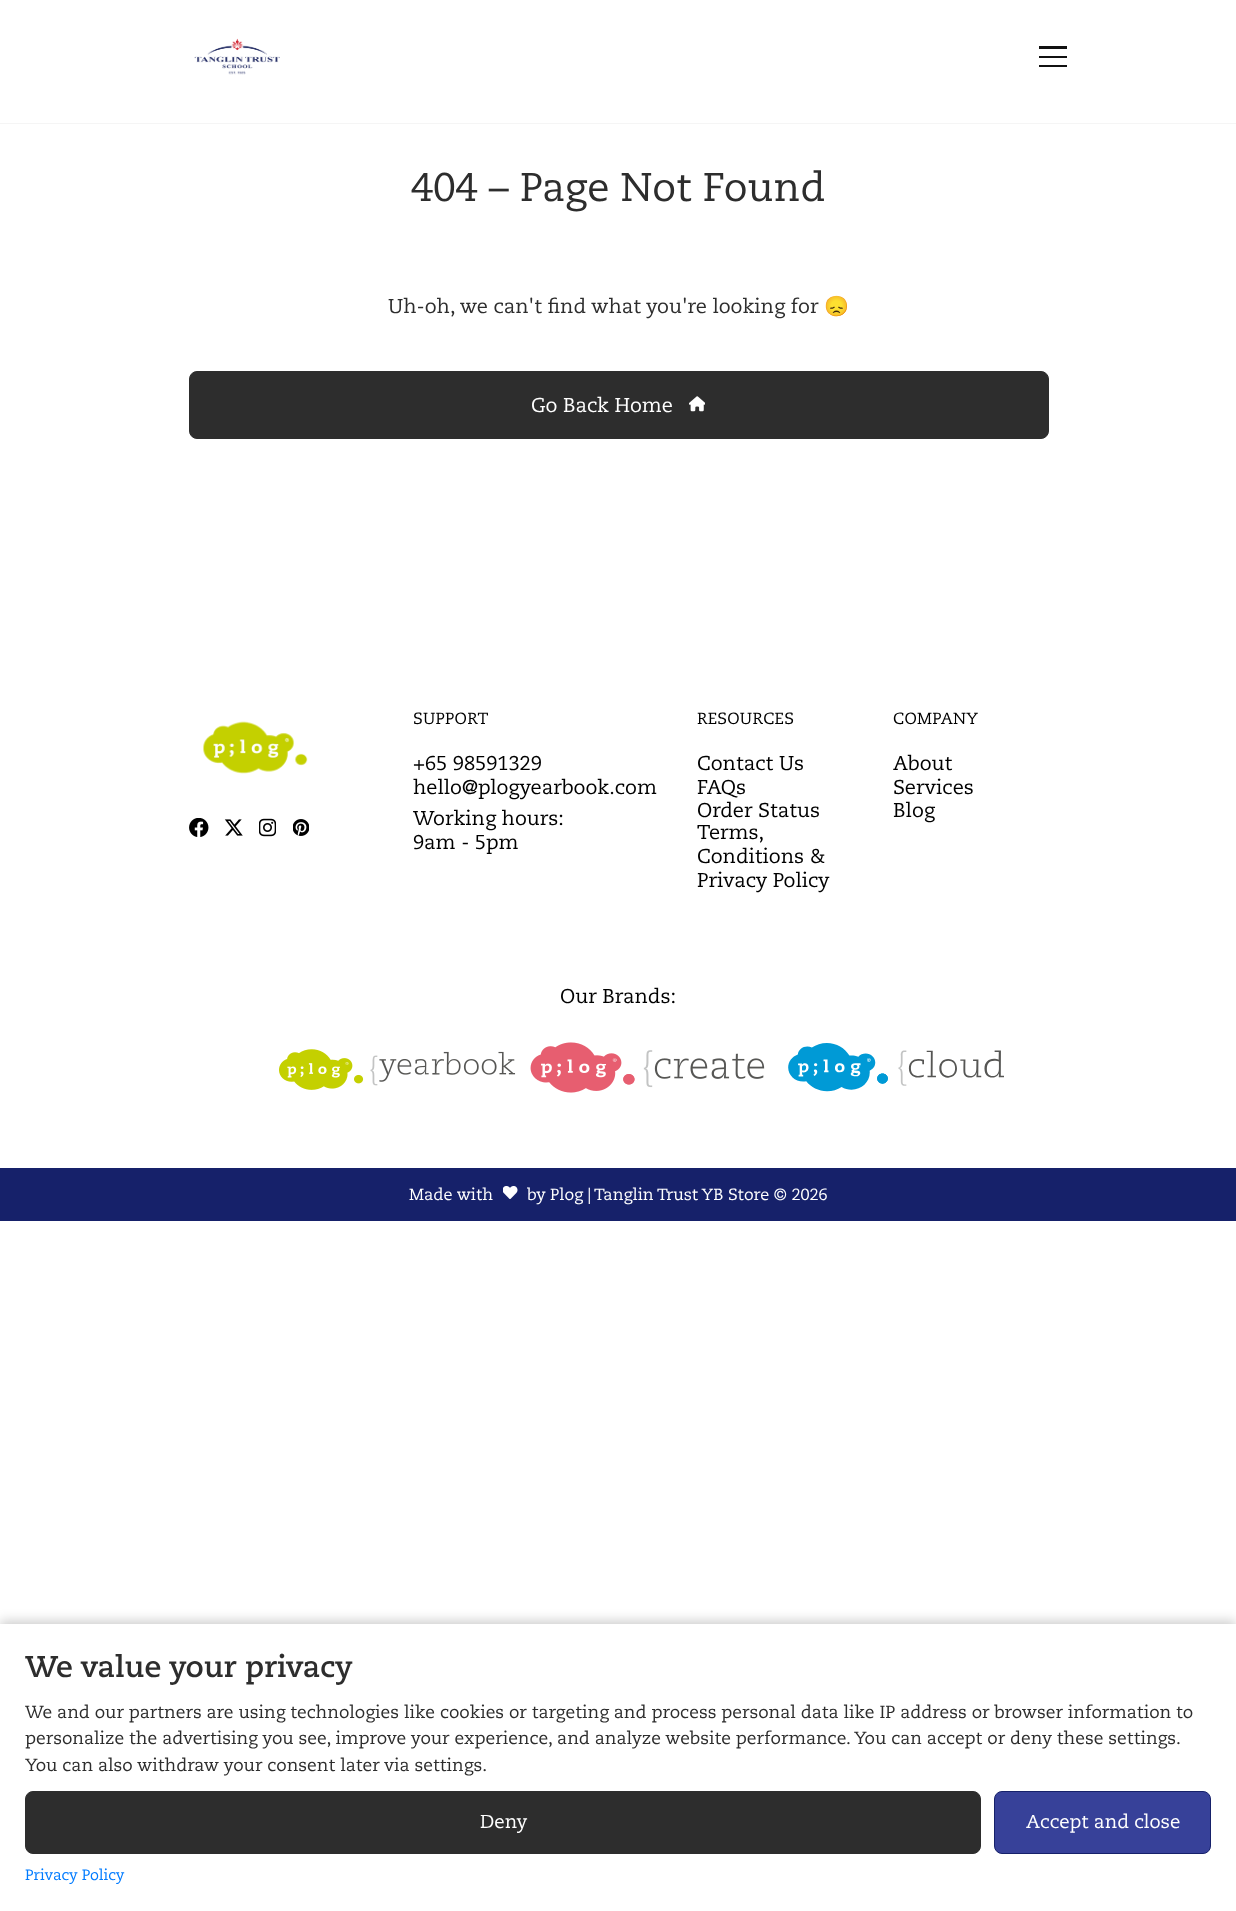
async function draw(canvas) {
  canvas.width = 1236
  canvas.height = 1911
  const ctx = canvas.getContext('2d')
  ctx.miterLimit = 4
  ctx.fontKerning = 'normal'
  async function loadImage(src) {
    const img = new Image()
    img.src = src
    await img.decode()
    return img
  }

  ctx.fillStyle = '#fff'
  ctx.fillRect(0, 0, 1236, 1911)
  ctx.drawImage(await loadImage('image0.png'), 194, 38, 86, 37)
  ctx.fillStyle = '#111'
  ctx.fillRect(1039, 46, 28, 3)
  ctx.fillRect(1039, 56, 28, 2)
  ctx.fillRect(1039, 65, 28, 2)
  ctx.fillStyle = '#f5f5f5'
  ctx.fillRect(0, 123, 1236, 1)
  ctx.font = '40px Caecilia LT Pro'
  ctx.fillStyle = '#2d2d2d'
  ctx.fillText('404 – Page Not Found', 411, 201)
  ctx.font = '20px Caecilia LT Pro'
  ctx.fillText('Uh-oh, we can\'t find what you\'re looking for', 388, 313)
  ctx.font = '20px Noto Color Emoji'
  ctx.fillText('😞', 824, 313)
  ctx.beginPath()
  ctx.roundRect(189.5, 371.5, 859, 67, 7.5)
  ctx.fill()
  ctx.strokeStyle = '#2d2d2d'
  ctx.stroke()
  ctx.font = '20px Caecilia LT Pro'
  ctx.fillStyle = '#fff'
  ctx.fillText('Go Back Home', 531, 412)
  ctx.drawImage(await loadImage('image1.png'), 689, 396, 16, 16)
  ctx.drawImage(await loadImage('image2.png'), 203, 721, 105, 53)
  ctx.drawImage(await loadImage('image3.png'), 189, 818, 20, 19)
  ctx.drawImage(await loadImage('image4.png'), 224, 819, 19, 17)
  ctx.drawImage(await loadImage('image5.png'), 259, 818, 17, 19)
  ctx.drawImage(await loadImage('image6.png'), 293, 819, 16, 17)
  ctx.letterSpacing = '0.25px'
  ctx.font = '16.25px Caecilia LT Pro'
  ctx.fillStyle = '#000'
  ctx.fillText('SUPPORT', 413, 724)
  ctx.letterSpacing = '0px'
  ctx.font = '20px Caecilia LT Pro'
  ctx.fillText('+65 98591329', 413, 770)
  ctx.fillText('hello@plogyearbook.com', 413, 794)
  ctx.fillText('Working hours:', 413, 825)
  ctx.fillText('9am - 5pm', 413, 849)
  ctx.letterSpacing = '0.25px'
  ctx.font = '16.25px Caecilia LT Pro'
  ctx.fillText('RESOURCES', 697, 724)
  ctx.letterSpacing = '0px'
  ctx.font = '20px Caecilia LT Pro'
  ctx.fillText('Contact Us', 697, 770)
  ctx.fillText('FAQs', 697, 794)
  ctx.fillText('Order Status', 697, 817)
  ctx.fillText('Terms,', 697, 839)
  ctx.fillText('Conditions &', 697, 863)
  ctx.fillText('Privacy Policy', 697, 887)
  ctx.letterSpacing = '0.25px'
  ctx.font = '16.25px Caecilia LT Pro'
  ctx.fillText('COMPANY', 893, 724)
  ctx.letterSpacing = '0px'
  ctx.font = '20px Caecilia LT Pro'
  ctx.fillText('About', 893, 770)
  ctx.fillText('Services', 893, 794)
  ctx.fillText('Blog', 893, 817)
  ctx.fillText('Our Brands:', 560, 1003)
  ctx.drawImage(await loadImage('image7.png'), 279, 1049, 237, 41)
  ctx.drawImage(await loadImage('image8.png'), 530, 1042, 235, 51)
  ctx.drawImage(await loadImage('image9.png'), 788, 1043, 216, 49)
  ctx.fillStyle = '#16216a'
  ctx.fillRect(0, 1168, 1236, 53)
  ctx.font = '16.25px Caecilia LT Pro'
  ctx.fillStyle = '#fff'
  ctx.fillText('Made with', 409, 1200)
  ctx.drawImage(await loadImage('image10.png'), 503, 1186, 15, 13)
  ctx.fillText('by Plog |', 527, 1200)
  ctx.fillText('Tanglin Trust YB Store © 2026', 594, 1200)
  ctx.fillStyle = '#00000033'
  ctx.filter = 'blur(6px)'
  ctx.beginPath()
  ctx.rect(0, 1621, 1236, 288)
  ctx.fill()
  ctx.filter = 'none'
  ctx.fillStyle = '#fff'
  ctx.fillRect(0, 1624, 1236, 287)
  ctx.font = 'bold 30px Caecilia LT Pro'
  ctx.fillStyle = '#2d2d2d'
  ctx.fillText('We value your privacy', 25, 1677)
  ctx.font = '17.5px Caecilia LT Pro'
  ctx.fillText('We and our partners are using technologies like cookies or targeting and process personal data like IP address or browser information to', 25, 1718)
  ctx.fillText('personalize the advertising you see, improve your experience, and analyze website performance. You can accept or deny these settings.', 25, 1744)
  ctx.fillText('You can also withdraw your consent later via settings.', 25, 1771)
  ctx.beginPath()
  ctx.roundRect(25.5, 1791.5, 955, 62, 7.5)
  ctx.fill()
  ctx.stroke()
  ctx.font = '18.75px Caecilia LT Pro'
  ctx.fillStyle = '#fff'
  ctx.fillText('Deny', 480, 1828)
  ctx.fillStyle = '#374199'
  ctx.beginPath()
  ctx.roundRect(994.5, 1791.5, 216, 62, 7.5)
  ctx.fill()
  ctx.strokeStyle = '#16216a'
  ctx.stroke()
  ctx.fillStyle = '#fff'
  ctx.fillText('Accept and close', 1026, 1828)
  ctx.font = '15px Caecilia LT Pro'
  ctx.fillStyle = '#007bff'
  ctx.fillText('Privacy Policy', 25, 1880)
}

draw(document.querySelector('canvas'))
